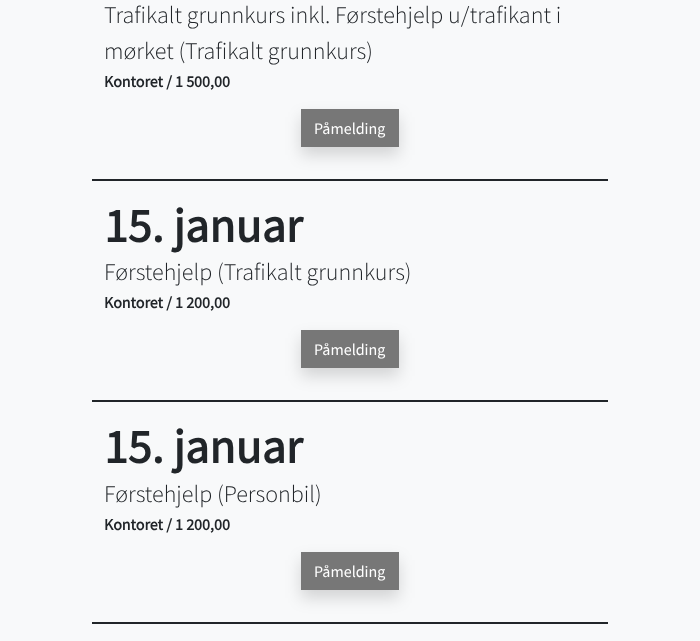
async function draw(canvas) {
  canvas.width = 700
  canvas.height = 641
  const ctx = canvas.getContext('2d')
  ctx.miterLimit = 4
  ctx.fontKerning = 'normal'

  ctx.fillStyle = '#f8f9fa'
  ctx.fillRect(0, 0, 700, 641)
  ctx.font = '300 24px Source Sans Pro'
  ctx.fillStyle = '#212529'
  ctx.fillText('Trafikalt grunnkurs inkl. Førstehjelp u/trafikant i', 104, 23)
  ctx.fillText('mørket (Trafikalt grunnkurs)', 104, 59)
  ctx.font = 'bold 16px Source Sans Pro'
  ctx.fillText('Kontoret / 1 500,00', 104, 87)
  ctx.fillStyle = '#00000026'
  ctx.filter = 'blur(8px)'
  ctx.beginPath()
  ctx.rect(301, 117, 98, 38)
  ctx.fill()
  ctx.filter = 'none'
  ctx.fillStyle = '#777'
  ctx.fillRect(301, 109, 98, 38)
  ctx.font = '16px Source Sans Pro'
  ctx.fillStyle = '#fff'
  ctx.fillText('Påmelding', 314, 134)
  ctx.fillStyle = '#212529'
  ctx.fillRect(92, 179, 516, 2)
  ctx.font = 'bold 48px Source Sans Pro'
  ctx.fillText('15. januar', 104, 242)
  ctx.font = '300 24px Source Sans Pro'
  ctx.fillText('Førstehjelp (Trafikalt grunnkurs)', 104, 280)
  ctx.font = 'bold 16px Source Sans Pro'
  ctx.fillText('Kontoret / 1 200,00', 104, 308)
  ctx.fillStyle = '#00000026'
  ctx.filter = 'blur(8px)'
  ctx.beginPath()
  ctx.rect(301, 338, 98, 38)
  ctx.fill()
  ctx.filter = 'none'
  ctx.fillStyle = '#777'
  ctx.fillRect(301, 330, 98, 38)
  ctx.font = '16px Source Sans Pro'
  ctx.fillStyle = '#fff'
  ctx.fillText('Påmelding', 314, 355)
  ctx.fillStyle = '#212529'
  ctx.fillRect(92, 400, 516, 2)
  ctx.font = 'bold 48px Source Sans Pro'
  ctx.fillText('15. januar', 104, 463)
  ctx.font = '300 24px Source Sans Pro'
  ctx.fillText('Førstehjelp (Personbil)', 104, 502)
  ctx.font = 'bold 16px Source Sans Pro'
  ctx.fillText('Kontoret / 1 200,00', 104, 530)
  ctx.fillStyle = '#00000026'
  ctx.filter = 'blur(8px)'
  ctx.beginPath()
  ctx.rect(301, 560, 98, 38)
  ctx.fill()
  ctx.filter = 'none'
  ctx.fillStyle = '#777'
  ctx.fillRect(301, 552, 98, 38)
  ctx.font = '16px Source Sans Pro'
  ctx.fillStyle = '#fff'
  ctx.fillText('Påmelding', 314, 577)
  ctx.fillStyle = '#212529'
  ctx.fillRect(92, 622, 516, 2)
}

draw(document.querySelector('canvas'))
